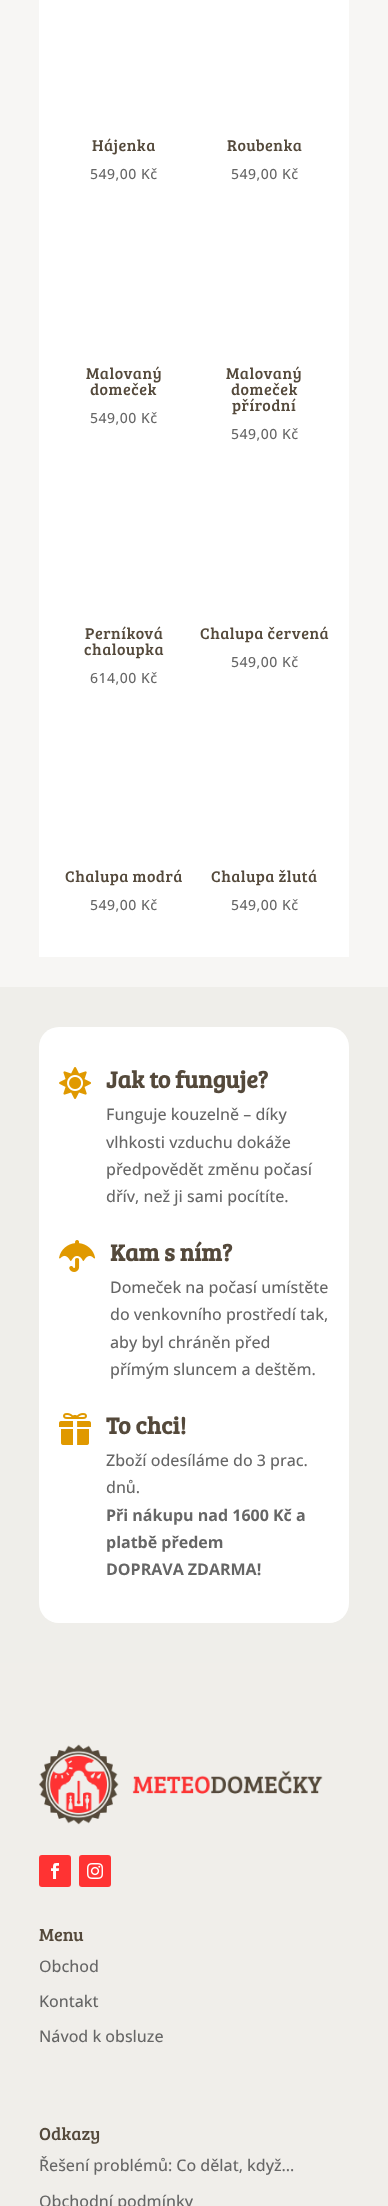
async function draw(canvas) {
  canvas.width = 388
  canvas.height = 2206
  const ctx = canvas.getContext('2d')
  ctx.miterLimit = 4
  ctx.fontKerning = 'normal'
  async function loadImage(src) {
    const img = new Image()
    img.src = src
    await img.decode()
    return img
  }

  ctx.fillStyle = '#f7f6f4'
  ctx.fillRect(0, 0, 388, 2206)
  ctx.fillStyle = '#fff'
  ctx.fillRect(39, 0, 310, 957)
  ctx.letterSpacing = '0.5px'
  ctx.font = '16px Bree Serif'
  ctx.fillStyle = '#54493b'
  ctx.fillText('Hájenka', 92, 151)
  ctx.font = '500 14px Open Sans'
  ctx.fillStyle = '#666'
  ctx.fillText('549,00 Kč', 90, 179)
  ctx.font = '16px Bree Serif'
  ctx.fillStyle = '#54493b'
  ctx.fillText('Roubenka', 227, 151)
  ctx.font = '500 14px Open Sans'
  ctx.fillStyle = '#666'
  ctx.fillText('549,00 Kč', 231, 179)
  ctx.font = '16px Bree Serif'
  ctx.fillStyle = '#54493b'
  ctx.fillText('Malovaný', 86, 379)
  ctx.fillText('domeček', 90, 395)
  ctx.font = '500 14px Open Sans'
  ctx.fillStyle = '#666'
  ctx.fillText('549,00 Kč', 90, 423)
  ctx.font = '16px Bree Serif'
  ctx.fillStyle = '#54493b'
  ctx.fillText('Malovaný', 226, 379)
  ctx.fillText('domeček', 231, 395)
  ctx.fillText('přírodní', 232, 411)
  ctx.font = '500 14px Open Sans'
  ctx.fillStyle = '#666'
  ctx.fillText('549,00 Kč', 231, 439)
  ctx.font = '16px Bree Serif'
  ctx.fillStyle = '#54493b'
  ctx.fillText('Perníková', 85, 639)
  ctx.fillText('chaloupka', 84, 655)
  ctx.font = '500 14px Open Sans'
  ctx.fillStyle = '#666'
  ctx.fillText('614,00 Kč', 90, 683)
  ctx.font = '16px Bree Serif'
  ctx.fillStyle = '#54493b'
  ctx.fillText('Chalupa červená', 200, 639)
  ctx.font = '500 14px Open Sans'
  ctx.fillStyle = '#666'
  ctx.fillText('549,00 Kč', 231, 667)
  ctx.font = '16px Bree Serif'
  ctx.fillStyle = '#54493b'
  ctx.fillText('Chalupa modrá', 65, 882)
  ctx.font = '500 14px Open Sans'
  ctx.fillStyle = '#666'
  ctx.fillText('549,00 Kč', 90, 910)
  ctx.font = '16px Bree Serif'
  ctx.fillStyle = '#54493b'
  ctx.fillText('Chalupa žlutá', 211, 882)
  ctx.font = '500 14px Open Sans'
  ctx.fillStyle = '#666'
  ctx.fillText('549,00 Kč', 231, 910)
  ctx.fillStyle = '#efeeea'
  ctx.fillRect(0, 987, 388, 676)
  ctx.fillStyle = '#fff'
  ctx.beginPath()
  ctx.roundRect(39, 1027, 310, 596, 20)
  ctx.fill()
  ctx.drawImage(await loadImage('image0.png'), 59, 1067, 32, 32)
  ctx.letterSpacing = '0px'
  ctx.font = 'bold 24px Bree Serif'
  ctx.fillStyle = '#54493b'
  ctx.fillText('Jak to funguje?', 106, 1088)
  ctx.font = '500 16px Open Sans'
  ctx.fillStyle = '#666'
  ctx.fillText('Funguje kouzelně – díky', 106, 1120)
  ctx.fillText('vlhkosti vzduchu dokáže', 106, 1148)
  ctx.fillText('předpovědět změnu počasí', 106, 1175)
  ctx.fillText('dřív, než ji sami pocítíte.', 106, 1202)
  ctx.drawImage(await loadImage('image1.png'), 59, 1240, 37, 32)
  ctx.font = 'bold 24px Bree Serif'
  ctx.fillStyle = '#54493b'
  ctx.fillText('Kam s ním?', 110, 1261)
  ctx.font = '500 16px Open Sans'
  ctx.fillStyle = '#666'
  ctx.fillText('Domeček na počasí umístěte', 110, 1293)
  ctx.fillText('do venkovního prostředí tak,', 110, 1320)
  ctx.fillText('aby byl chráněn před', 110, 1348)
  ctx.fillText('přímým sluncem a deštěm.', 110, 1375)
  ctx.drawImage(await loadImage('image2.png'), 59, 1413, 32, 32)
  ctx.font = 'bold 24px Bree Serif'
  ctx.fillStyle = '#54493b'
  ctx.fillText('To chci!', 106, 1434)
  ctx.font = '500 16px Open Sans'
  ctx.fillStyle = '#666'
  ctx.fillText('Zboží odesíláme do 3 prac.', 106, 1466)
  ctx.fillText('dnů.', 106, 1493)
  ctx.font = 'bold 16px Open Sans'
  ctx.fillText('Při nákupu nad 1600 Kč a', 106, 1521)
  ctx.fillText('platbě předem', 106, 1548)
  ctx.fillText('DOPRAVA ZDARMA!', 106, 1575)
  ctx.fillStyle = '#f0eeea'
  ctx.fillRect(0, 1663, 388, 543)
  ctx.drawImage(await loadImage('image3.png'), 39, 1744, 284, 81)
  ctx.fillStyle = '#f33'
  ctx.beginPath()
  ctx.roundRect(39, 1855, 32, 32, 3)
  ctx.fill()
  ctx.drawImage(await loadImage('image4.png'), 51, 1863, 8, 16)
  ctx.beginPath()
  ctx.roundRect(79, 1855, 32, 32, 3)
  ctx.fill()
  ctx.drawImage(await loadImage('image5.png'), 87, 1863, 16, 16)
  ctx.font = '18px Bree Serif'
  ctx.fillStyle = '#54493b'
  ctx.fillText('Menu', 39, 1941)
  ctx.font = '500 16px Open Sans'
  ctx.fillStyle = '#666'
  ctx.fillText('Obchod', 39, 1972)
  ctx.fillText('Kontakt', 39, 2007)
  ctx.fillText('Návod k obsluze', 39, 2042)
  ctx.font = '18px Bree Serif'
  ctx.fillStyle = '#54493b'
  ctx.fillText('Odkazy', 39, 2140)
  ctx.font = '500 16px Open Sans'
  ctx.fillStyle = '#666'
  ctx.fillText('Řešení problémů: Co dělat, když…', 39, 2171)
  ctx.fillText('Obchodní podmínky', 39, 2207)
}

draw(document.querySelector('canvas'))
